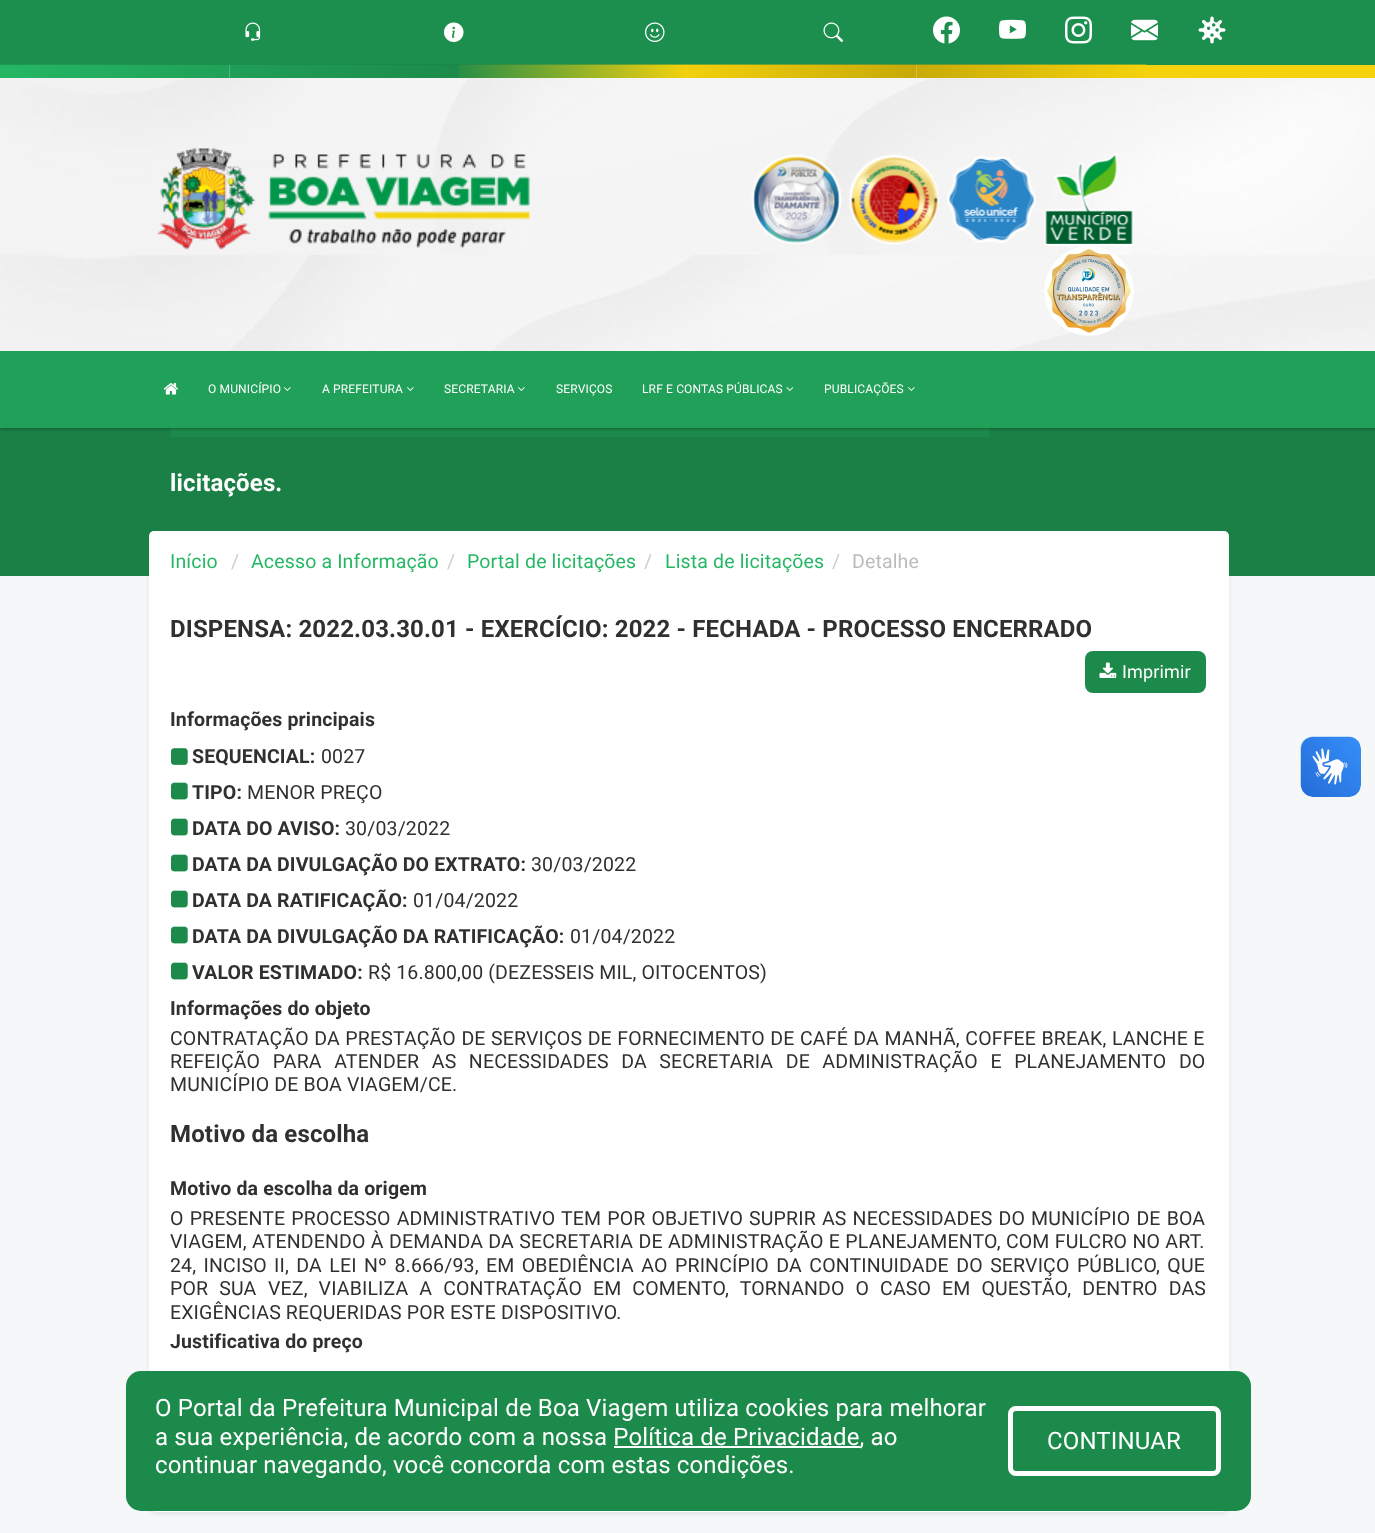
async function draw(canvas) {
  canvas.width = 1375
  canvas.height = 1533
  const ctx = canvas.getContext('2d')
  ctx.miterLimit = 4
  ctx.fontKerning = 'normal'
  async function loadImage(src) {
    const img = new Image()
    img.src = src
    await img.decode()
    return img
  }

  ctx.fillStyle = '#f6f7f8'
  ctx.fillRect(0, 0, 1375, 1533)
  ctx.fillStyle = '#03004717'
  ctx.filter = 'blur(2px)'
  ctx.beginPath()
  ctx.roundRect(149, 533, 1080, 981, 8)
  ctx.fill()
  ctx.filter = 'none'
  ctx.fillStyle = '#fff'
  ctx.beginPath()
  ctx.roundRect(149, 531, 1080, 981, 8)
  ctx.fill()
  ctx.fillStyle = '#1a8046'
  ctx.fillRect(0, 428, 1375, 148)
  ctx.fillStyle = '#1c8a4a'
  ctx.fillRect(171, 428, 818, 9)
  ctx.fillStyle = '#0000004d'
  ctx.filter = 'blur(1.5px)'
  ctx.beginPath()
  ctx.rect(0, 2, 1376, 427)
  ctx.fill()
  ctx.filter = 'none'
  ctx.drawImage(await loadImage('image0.png'), 0, 65, 1375, 286)
  ctx.fillStyle = '#20a058'
  ctx.fillRect(0, 0, 1375, 65)
  ctx.drawImage(await loadImage('image10.png'), 0, 64, 230, 14)
  ctx.drawImage(await loadImage('image11.png'), 229, 64, 230, 14)
  ctx.drawImage(await loadImage('image12.png'), 459, 64, 228, 14)
  ctx.drawImage(await loadImage('image13.png'), 687, 64, 230, 14)
  ctx.drawImage(await loadImage('image14.png'), 916, 64, 230, 14)
  ctx.fillStyle = '#0000001a'
  ctx.fillRect(0, 0, 1375, 65)
  ctx.drawImage(await loadImage('image1.png'), 245, 22, 16, 19)
  ctx.drawImage(await loadImage('image2.png'), 444, 22, 20, 20)
  ctx.drawImage(await loadImage('image3.png'), 645, 22, 20, 20)
  ctx.drawImage(await loadImage('image4.png'), 823, 22, 20, 20)
  ctx.drawImage(await loadImage('image5.png'), 933, 16, 27, 28)
  ctx.drawImage(await loadImage('image6.png'), 999, 19, 27, 20)
  ctx.drawImage(await loadImage('image7.png'), 1065, 16, 27, 28)
  ctx.drawImage(await loadImage('image8.png'), 1131, 19, 27, 22)
  ctx.drawImage(await loadImage('image9.png'), 1198, 16, 28, 28)
  ctx.fillStyle = '#f5d20d'
  ctx.fillRect(1146, 65, 229, 13)
  ctx.drawImage(await loadImage('image15.png'), 157, 148, 373, 102)
  ctx.drawImage(await loadImage('image16.png'), 751, 154, 91, 91)
  ctx.drawImage(await loadImage('image17.png'), 849, 154, 90, 91)
  ctx.drawImage(await loadImage('image18.png'), 947, 156, 89, 87)
  ctx.drawImage(await loadImage('image19.png'), 1044, 153, 90, 93)
  ctx.drawImage(await loadImage('image20.png'), 1044, 246, 90, 90)
  ctx.fillStyle = '#20a058'
  ctx.fillRect(0, 351, 1375, 77)
  ctx.drawImage(await loadImage('image21.png'), 163, 383, 16, 12)
  ctx.letterSpacing = '0.15px'
  ctx.font = '12px Roboto'
  ctx.fillStyle = '#fff'
  ctx.fillText('O MUNICÍPIO', 208, 393)
  ctx.drawImage(await loadImage('image22.png'), 284, 387, 7, 4)
  ctx.fillText('A PREFEITURA', 322, 393)
  ctx.drawImage(await loadImage('image22.png'), 407, 387, 7, 4)
  ctx.fillText('SECRETARIA', 444, 393)
  ctx.drawImage(await loadImage('image22.png'), 518, 387, 7, 4)
  ctx.fillText('SERVIÇOS', 556, 393)
  ctx.fillText('LRF E CONTAS PÚBLICAS', 642, 393)
  ctx.drawImage(await loadImage('image23.png'), 786, 387, 8, 4)
  ctx.fillText('PUBLICAÇÕES', 824, 393)
  ctx.drawImage(await loadImage('image22.png'), 908, 387, 7, 4)
  ctx.font = 'bold 24px Roboto'
  ctx.fillText('licitações.', 170, 491)
  ctx.beginPath()
  ctx.roundRect(149, 531, 1080, 60, 5)
  ctx.fill()
  ctx.font = '19.5px Roboto'
  ctx.fillStyle = '#25b864'
  ctx.fillText('Início', 170, 568)
  ctx.fillStyle = '#ccc'
  ctx.fillText('/', 231, 568)
  ctx.fillStyle = '#25b864'
  ctx.fillText('Acesso a Informação', 251, 568)
  ctx.fillStyle = '#ccc'
  ctx.fillText('/', 447, 568)
  ctx.fillStyle = '#25b864'
  ctx.fillText('Portal de licitações', 467, 568)
  ctx.fillStyle = '#ccc'
  ctx.fillText('/', 644, 568)
  ctx.fillStyle = '#25b864'
  ctx.fillText('Lista de licitações', 665, 568)
  ctx.fillStyle = '#ccc'
  ctx.fillText('/', 832, 568)
  ctx.fillStyle = '#bbb'
  ctx.fillText('Detalhe', 852, 568)
  ctx.font = 'bold 24px Roboto'
  ctx.fillStyle = '#303030'
  ctx.fillText('DISPENSA: 2022.03.30.01 - EXERCÍCIO: 2022 - FECHADA - PROCESSO ENCERRADO', 170, 637)
  ctx.fillStyle = '#1c8a4a'
  ctx.beginPath()
  ctx.roundRect(1085, 651, 121, 42, 8)
  ctx.fill()
  ctx.drawImage(await loadImage('image24.png'), 1099, 662, 18, 16)
  ctx.font = '18px Roboto'
  ctx.fillStyle = '#fff'
  ctx.fillText('Imprimir', 1122, 678)
  ctx.font = 'bold 19.5px Roboto'
  ctx.fillStyle = '#303030'
  ctx.fillText('Informações principais', 170, 726)
  ctx.drawImage(await loadImage('image25.png'), 171, 748, 17, 17)
  ctx.fillText('SEQUENCIAL:', 192, 763)
  ctx.font = '19.5px Roboto'
  ctx.fillText('0027', 321, 763)
  ctx.drawImage(await loadImage('image26.png'), 171, 782, 17, 18)
  ctx.font = 'bold 19.5px Roboto'
  ctx.fillText('TIPO:', 192, 799)
  ctx.font = '19.5px Roboto'
  ctx.fillText('MENOR PREÇO', 247, 799)
  ctx.drawImage(await loadImage('image26.png'), 171, 818, 17, 18)
  ctx.font = 'bold 19.5px Roboto'
  ctx.fillText('DATA DO AVISO:', 192, 835)
  ctx.font = '19.5px Roboto'
  ctx.fillText('30/03/2022', 345, 835)
  ctx.drawImage(await loadImage('image26.png'), 171, 854, 17, 18)
  ctx.font = 'bold 19.5px Roboto'
  ctx.fillText('DATA DA DIVULGAÇÃO DO EXTRATO:', 192, 871)
  ctx.font = '19.5px Roboto'
  ctx.fillText('30/03/2022', 531, 871)
  ctx.drawImage(await loadImage('image26.png'), 171, 890, 17, 18)
  ctx.font = 'bold 19.5px Roboto'
  ctx.fillText('DATA DA RATIFICAÇÃO:', 192, 907)
  ctx.font = '19.5px Roboto'
  ctx.fillText('01/04/2022', 413, 907)
  ctx.drawImage(await loadImage('image26.png'), 171, 926, 17, 18)
  ctx.font = 'bold 19.5px Roboto'
  ctx.fillText('DATA DA DIVULGAÇÃO DA RATIFICAÇÃO:', 192, 943)
  ctx.font = '19.5px Roboto'
  ctx.fillText('01/04/2022', 570, 943)
  ctx.drawImage(await loadImage('image26.png'), 171, 962, 17, 18)
  ctx.font = 'bold 19.5px Roboto'
  ctx.fillText('VALOR ESTIMADO:', 192, 979)
  ctx.font = '19.5px Roboto'
  ctx.fillText('R$ 16.800,00 (DEZESSEIS MIL, OITOCENTOS)', 368, 979)
  ctx.font = 'bold 19.5px Roboto'
  ctx.fillText('Informações do objeto', 170, 1015)
  ctx.wordSpacing = '0.5px'
  ctx.font = '19.5px Roboto'
  ctx.fillText('CONTRATAÇÃO DA PRESTAÇÃO DE SERVIÇOS DE FORNECIMENTO DE CAFÉ DA MANHÃ, COFFEE BREAK, LANCHE E', 170, 1045)
  ctx.wordSpacing = '7.5px'
  ctx.fillText('REFEIÇÃO PARA ATENDER AS NECESSIDADES DA SECRETARIA DE ADMINISTRAÇÃO E PLANEJAMENTO DO', 170, 1068)
  ctx.wordSpacing = '0px'
  ctx.fillText('MUNICÍPIO DE BOA VIAGEM/CE.', 170, 1091)
  ctx.font = 'bold 24px Roboto'
  ctx.fillText('Motivo da escolha', 170, 1142)
  ctx.font = 'bold 19.5px Roboto'
  ctx.fillText('Motivo da escolha da origem', 170, 1195)
  ctx.wordSpacing = '1.1px'
  ctx.font = '19.5px Roboto'
  ctx.fillText('O PRESENTE PROCESSO ADMINISTRATIVO TEM POR OBJETIVO SUPRIR AS NECESSIDADES DO MUNICÍPIO DE BOA', 170, 1225)
  ctx.wordSpacing = '0.3px'
  ctx.fillText('VIAGEM, ATENDENDO À DEMANDA DA SECRETARIA DE ADMINISTRAÇÃO E PLANEJAMENTO, COM FULCRO NO ART.', 170, 1248)
  ctx.wordSpacing = '2.4px'
  ctx.fillText('24, INCISO', 170, 1272)
  ctx.fillText('II, DA LEI Nº 8.666/93, EM OBEDIÊNCIA AO PRINCÍPIO DA CONTINUIDADE DO SERVIÇO PÚBLICO, QUE', 274, 1272)
  ctx.wordSpacing = '6px'
  ctx.fillText('POR SUA', 170, 1295)
  ctx.fillText('VEZ, VIABILIZA A CONTRATAÇÃO EM COMENTO, TORNANDO O CASO EM QUESTÃO, DENTRO DAS', 268, 1295)
  ctx.wordSpacing = '0px'
  ctx.fillText('EXIGÊNCIAS REQUERIDAS POR ESTE DISPOSITIVO.', 170, 1319)
  ctx.font = 'bold 19.5px Roboto'
  ctx.fillText('Justificativa do preço', 170, 1348)
  ctx.drawImage(await loadImage('image27.png'), 1300, 736, 61, 61)
  ctx.drawImage(await loadImage('image28.png'), 1301, 737, 60, 60)
  ctx.fillStyle = '#1c8a4a'
  ctx.beginPath()
  ctx.roundRect(126, 1371, 1125, 140, 15)
  ctx.fill()
  ctx.font = '24px Roboto'
  ctx.fillStyle = '#fff'
  ctx.fillText('O Portal da Prefeitura Municipal de Boa Viagem utiliza cookies para melhorar', 155, 1416)
  ctx.fillText('a sua experiência, de acordo com a nossa Política de Privacidade, ao', 155, 1445)
  ctx.fillRect(614, 1446, 246, 2)
  ctx.fillText('continuar navegando, você concorda com estas condições.', 155, 1473)
  ctx.beginPath()
  ctx.roundRect(1010.5, 1408.5, 208, 65, 5.5)
  ctx.strokeStyle = '#fff'
  ctx.lineWidth = 5
  ctx.stroke()
  ctx.fillText('CONTINUAR', 1047, 1449)
}

draw(document.querySelector('canvas'))
